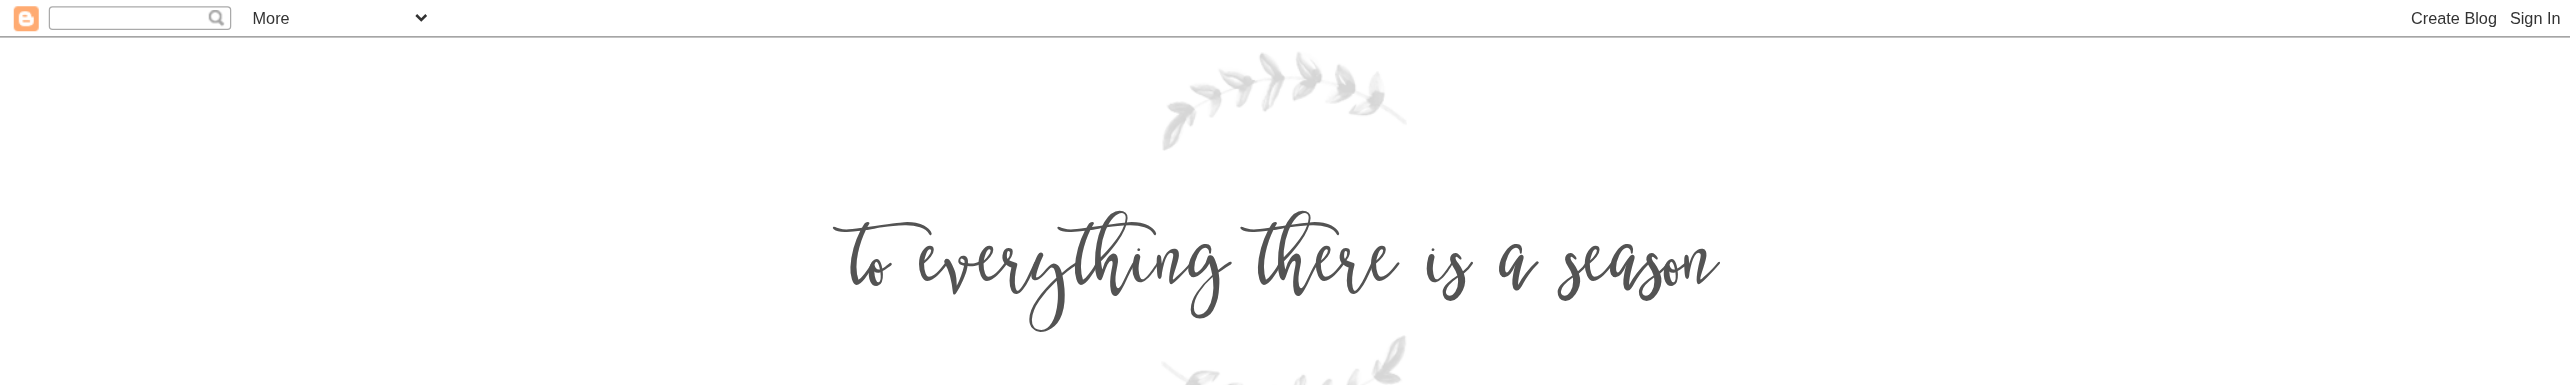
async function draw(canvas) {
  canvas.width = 2570
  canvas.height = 385
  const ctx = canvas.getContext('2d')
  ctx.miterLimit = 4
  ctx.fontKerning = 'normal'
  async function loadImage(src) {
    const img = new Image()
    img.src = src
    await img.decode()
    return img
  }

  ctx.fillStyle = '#fff'
  ctx.fillRect(0, 0, 2570, 385)
  ctx.drawImage(await loadImage('image0.png'), 1162, 51, 245, 100)
  ctx.drawImage(await loadImage('image1.png'), 0, 6, 2570, 32)
  ctx.drawImage(await loadImage('image2.png'), 1161, 335, 246, 50)
  ctx.font = '75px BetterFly'
  ctx.fillStyle = '#535353'
  ctx.fillText('to everything there is a season', 852, 284)
}

draw(document.querySelector('canvas'))
